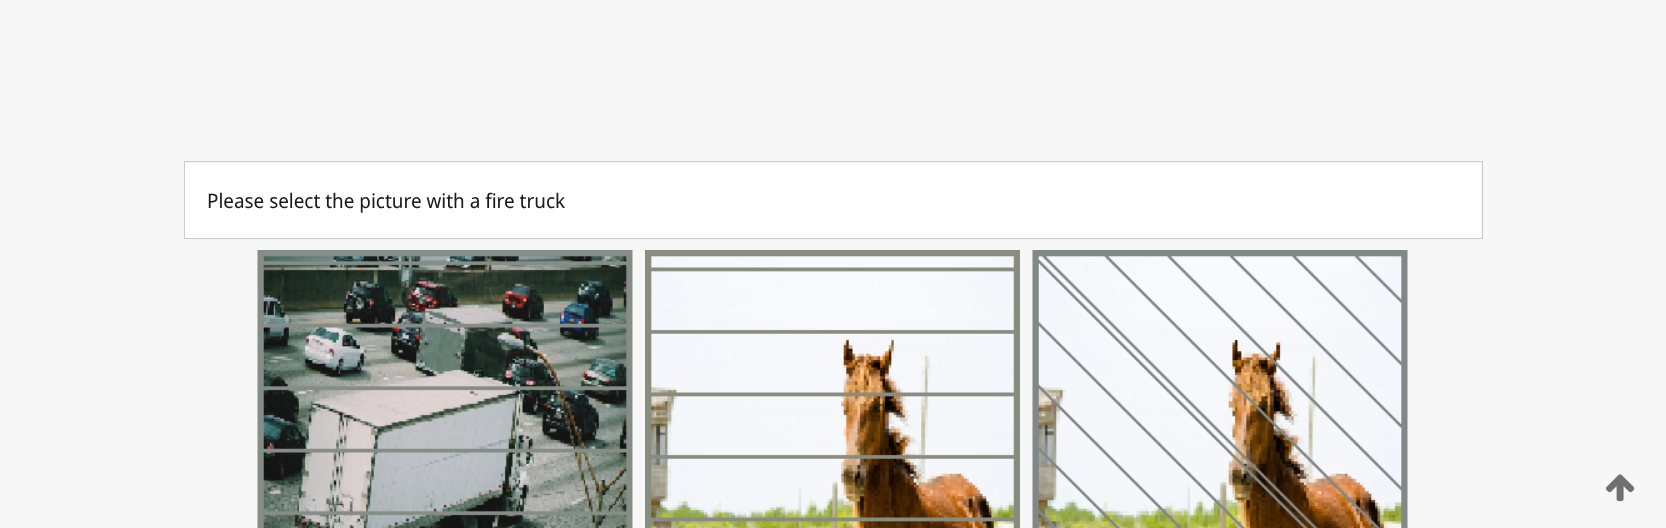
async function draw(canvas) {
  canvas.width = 1666
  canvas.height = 528
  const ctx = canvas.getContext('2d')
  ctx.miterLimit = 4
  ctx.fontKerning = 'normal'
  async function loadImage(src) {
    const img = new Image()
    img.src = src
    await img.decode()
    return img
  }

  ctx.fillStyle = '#f7f7f7'
  ctx.fillRect(0, 0, 1666, 528)
  ctx.fillStyle = '#fff'
  ctx.fillRect(185, 163, 1296, 75)
  ctx.strokeStyle = '#ccc'
  ctx.strokeRect(184.5, 161.5, 1298, 77)
  ctx.font = '20px Noto Sans Display'
  ctx.fillStyle = '#1a1a1a'
  ctx.fillText('Please select the picture with a fire truck', 207, 208)
  ctx.drawImage(await loadImage('image0.png'), 257, 250, 376, 278)
  ctx.drawImage(await loadImage('image1.png'), 645, 250, 375, 278)
  ctx.drawImage(await loadImage('image2.png'), 1032, 250, 376, 278)
  ctx.drawImage(await loadImage('image3.png'), 1606, 474, 29, 28)
}

draw(document.querySelector('canvas'))
